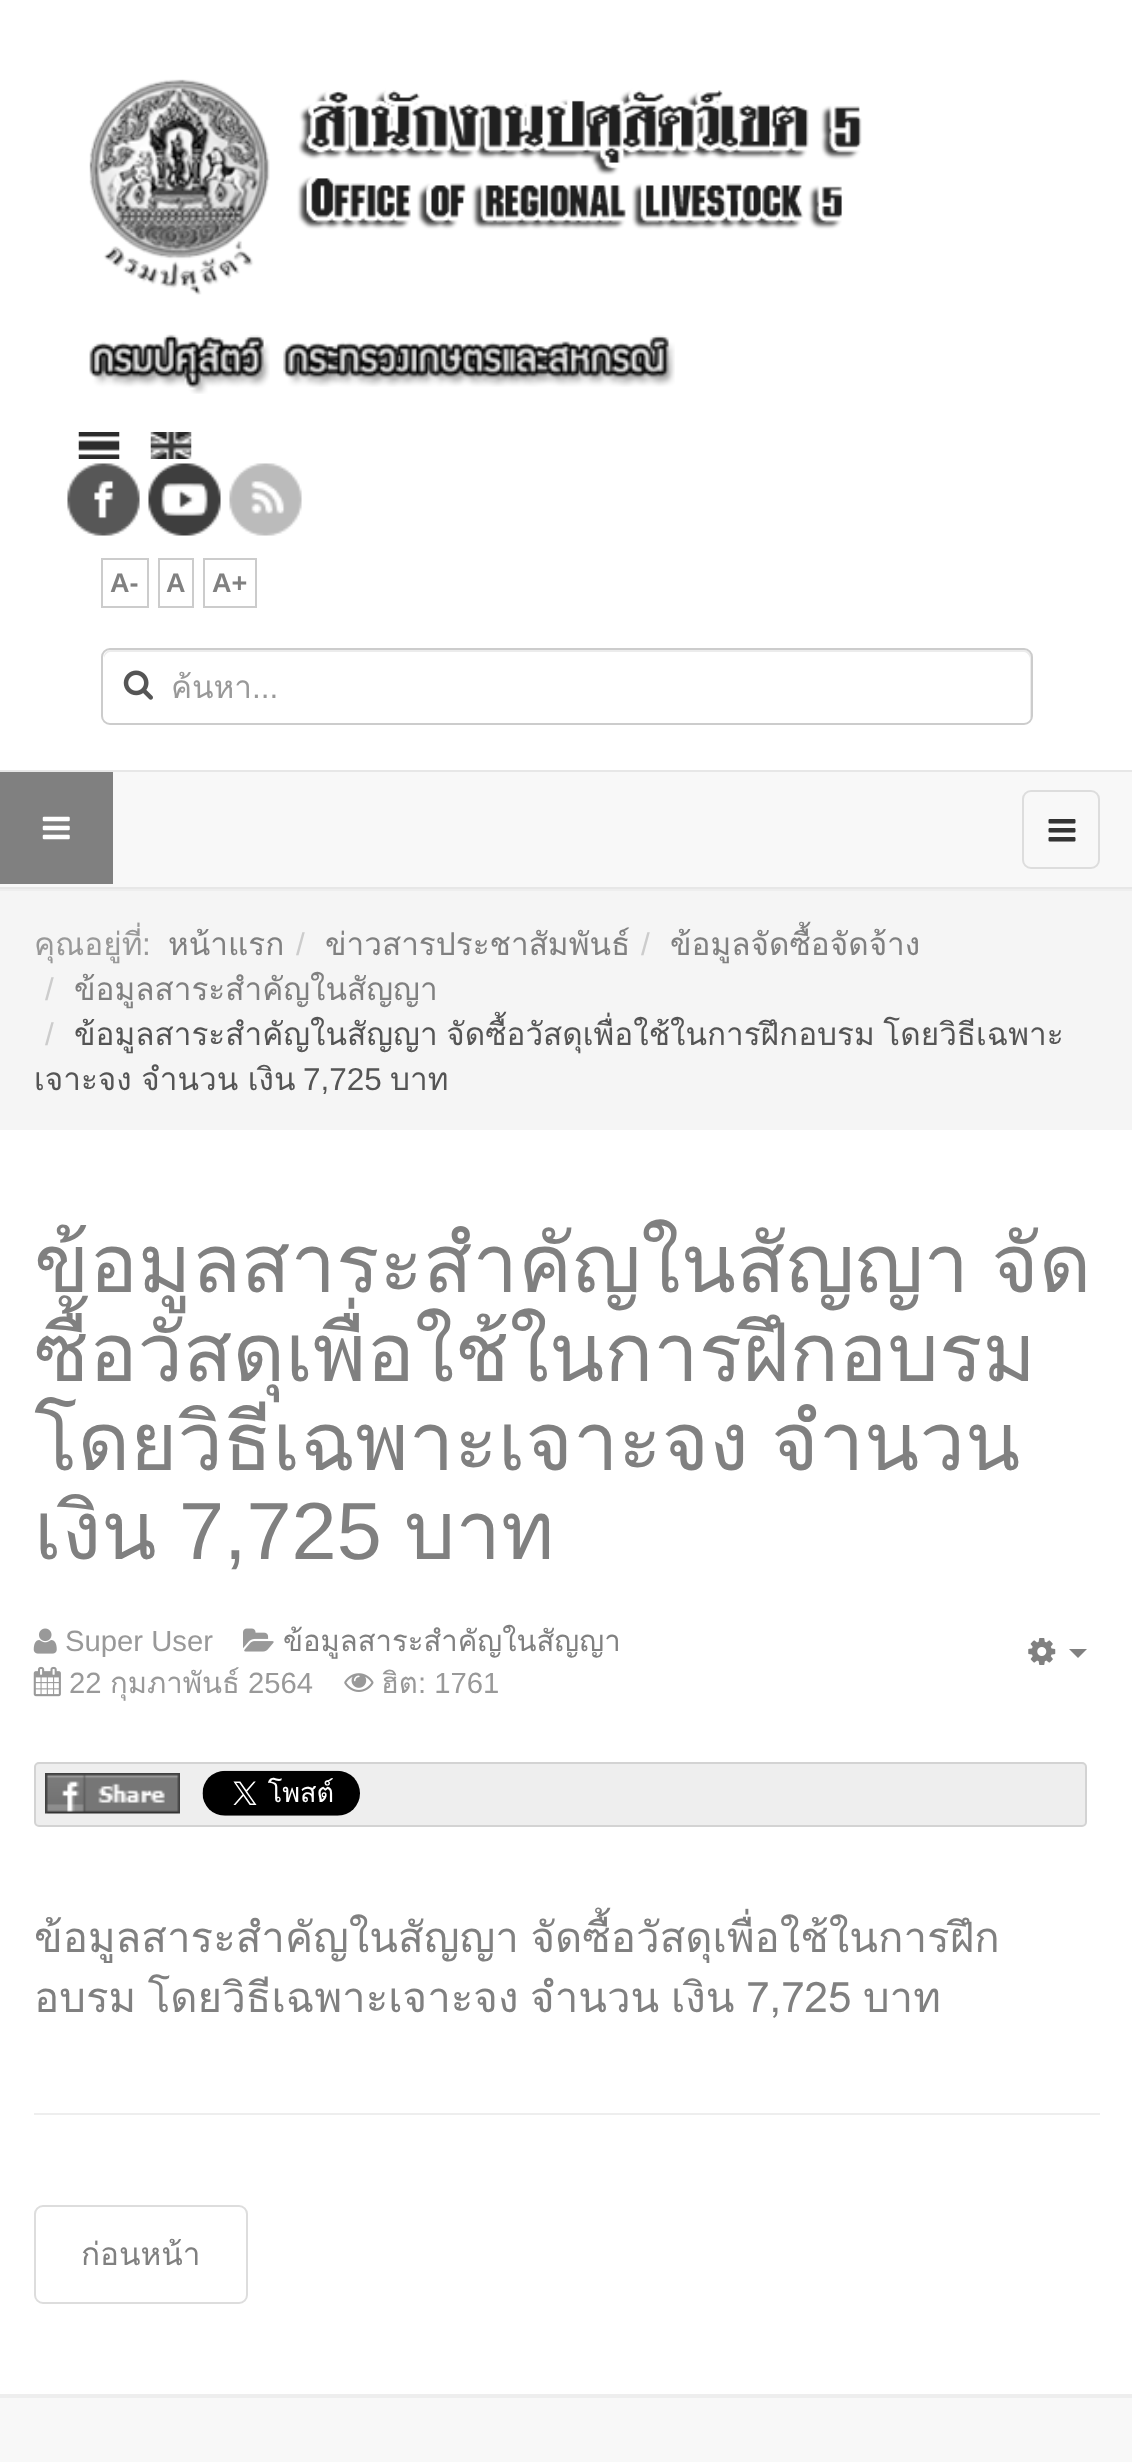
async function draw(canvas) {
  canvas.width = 1132
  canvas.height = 2462
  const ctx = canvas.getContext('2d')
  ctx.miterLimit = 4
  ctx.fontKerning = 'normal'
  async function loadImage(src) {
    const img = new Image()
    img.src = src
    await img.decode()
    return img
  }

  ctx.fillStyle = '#fff'
  ctx.fillRect(0, 0, 1132, 2462)
  ctx.drawImage(await loadImage('image0.png'), 89, 79, 773, 216)
  ctx.drawImage(await loadImage('image1.png'), 89, 334, 181, 60)
  ctx.drawImage(await loadImage('image2.png'), 283, 335, 392, 52)
  ctx.drawImage(await loadImage('image3.png'), 78, 432, 42, 27)
  ctx.drawImage(await loadImage('image4.png'), 150, 432, 42, 27)
  ctx.drawImage(await loadImage('image5.png'), 67, 463, 73, 73)
  ctx.drawImage(await loadImage('image6.png'), 148, 463, 73, 73)
  ctx.drawImage(await loadImage('image7.png'), 229, 463, 73, 73)
  ctx.strokeStyle = '#ccc'
  ctx.lineWidth = 2
  ctx.strokeRect(102, 559, 46, 48)
  ctx.font = 'bold 27px Liberation Sans'
  ctx.fillStyle = '#808080'
  ctx.fillText('A-', 110, 592)
  ctx.strokeRect(159, 559, 34, 48)
  ctx.fillText('A', 166, 592)
  ctx.strokeRect(204, 559, 52, 48)
  ctx.fillText('A+', 212, 592)
  ctx.fillStyle = '#ececec'
  ctx.beginPath()
  ctx.moveTo(110, 652)
  ctx.lineTo(1024, 652)
  ctx.bezierCurveTo(1027, 652, 1030, 656, 1030, 659)
  ctx.lineTo(1030, 719)
  ctx.bezierCurveTo(1031, 718, 1031, 716, 1031, 715)
  ctx.lineTo(1031, 657)
  ctx.bezierCurveTo(1031, 653, 1028, 650, 1024, 650)
  ctx.lineTo(111, 650)
  ctx.bezierCurveTo(107, 650, 104, 653, 104, 657)
  ctx.lineTo(104, 659)
  ctx.bezierCurveTo(104, 656, 107, 652, 110, 652)
  ctx.closePath()
  ctx.fill()
  ctx.beginPath()
  ctx.roundRect(102, 649, 930, 75, 8)
  ctx.stroke()
  ctx.drawImage(await loadImage('image8.png'), 123, 670, 30, 30)
  ctx.save()
  ctx.beginPath()
  ctx.rect(171, 662, 824, 49)
  ctx.clip()
  ctx.font = '31.5px Loma'
  ctx.fillStyle = '#999'
  ctx.fillText('ค้นหา', 171, 698)
  ctx.restore()
  ctx.font = '31.5px Liberation Sans'
  ctx.fillStyle = '#999'
  ctx.fillText('...', 252, 698)
  ctx.fillStyle = '#f8f8f8'
  ctx.fillRect(0, 772, 1132, 115)
  ctx.fillStyle = '#e7e7e7'
  ctx.fillRect(0, 770, 1132, 2)
  ctx.fillRect(0, 887, 1132, 2)
  ctx.fillStyle = '#808080'
  ctx.fillRect(0, 772, 113, 112)
  ctx.drawImage(await loadImage('image9.png'), 42, 816, 28, 24)
  ctx.beginPath()
  ctx.roundRect(1023, 791, 76, 77, 8)
  ctx.strokeStyle = '#ddd'
  ctx.stroke()
  ctx.drawImage(await loadImage('image10.png'), 1048, 819, 28, 23)
  ctx.fillStyle = '#f5f5f5'
  ctx.fillRect(0, 891, 1132, 239)
  ctx.fillStyle = '#eee'
  ctx.fillRect(0, 889, 1132, 2)
  ctx.font = '31.5px Loma'
  ctx.fillStyle = '#999'
  ctx.fillText('คุณอยู่ที่', 34, 955)
  ctx.font = '31.5px Liberation Sans'
  ctx.fillText(':', 142, 955)
  ctx.font = '31.5px Loma'
  ctx.fillStyle = '#808080'
  ctx.fillText('หน้าแรก', 168, 955)
  ctx.font = '31.5px Liberation Sans'
  ctx.fillStyle = '#ccc'
  ctx.fillText('/', 296, 955)
  ctx.font = '31.5px Loma'
  ctx.fillStyle = '#808080'
  ctx.fillText('ข่าวสารประชาสัมพันธ์', 325, 955)
  ctx.font = '31.5px Liberation Sans'
  ctx.fillStyle = '#ccc'
  ctx.fillText('/', 641, 955)
  ctx.font = '31.5px Loma'
  ctx.fillStyle = '#808080'
  ctx.fillText('ข้อมูลจัดซื้อจัดจ้าง', 670, 955)
  ctx.font = '31.5px Liberation Sans'
  ctx.fillStyle = '#ccc'
  ctx.fillText('/', 45, 1000)
  ctx.font = '31.5px Loma'
  ctx.fillStyle = '#808080'
  ctx.fillText('ข้อมูลสาระสำคัญในสัญญา', 74, 1000)
  ctx.font = '31.5px Liberation Sans'
  ctx.fillStyle = '#ccc'
  ctx.fillText('/', 45, 1045)
  ctx.wordSpacing = '-2px'
  ctx.font = '31.5px Loma'
  ctx.fillStyle = '#555'
  ctx.fillText('ข้อมูลสาระสำคัญในสัญญา จัดซื้อวัสดุเพื่อใช้ในการฝึกอบรม โดยวิธีเฉพาะ', 74, 1045)
  ctx.wordSpacing = '-1px'
  ctx.fillText('เจาะจง จำนวน เงิน', 34, 1090)
  ctx.wordSpacing = '0px'
  ctx.font = '31.5px Liberation Sans'
  ctx.fillText('7,725', 303, 1090)
  ctx.font = '31.5px Loma'
  ctx.fillText('บาท', 390, 1090)
  ctx.wordSpacing = '-5px'
  ctx.font = '81px Loma'
  ctx.fillStyle = '#808080'
  ctx.fillText('ข้อมูลสาระสำคัญในสัญญา จัด', 34, 1292)
  ctx.wordSpacing = '0px'
  ctx.fillText('ซื้อวัสดุเพื่อใช้ในการฝึกอบรม', 34, 1381)
  ctx.wordSpacing = '-5px'
  ctx.fillText('โดยวิธีเฉพาะเจาะจง จำนวน', 34, 1470)
  ctx.wordSpacing = '0px'
  ctx.fillText('เงิน', 34, 1559)
  ctx.font = '81px Liberation Sans'
  ctx.fillText('7,725', 179, 1559)
  ctx.font = '81px Loma'
  ctx.fillText('บาท', 404, 1559)
  ctx.drawImage(await loadImage('image11.png'), 33, 1628, 24, 26)
  ctx.font = '29.25px Liberation Sans'
  ctx.fillStyle = '#999'
  ctx.fillText('Super User', 65, 1651)
  ctx.font = '29.25px Loma'
  ctx.fillStyle = '#808080'
  ctx.fillText('ข้อมูลสาระสำคัญในสัญญา', 283, 1651)
  ctx.drawImage(await loadImage('image12.png'), 243, 1628, 31, 24)
  ctx.drawImage(await loadImage('image13.png'), 33, 1666, 28, 31)
  ctx.font = '29.25px Liberation Sans'
  ctx.fillStyle = '#999'
  ctx.fillText('22', 69, 1693)
  ctx.font = '29.25px Loma'
  ctx.fillText('กุมภาพันธ์', 110, 1693)
  ctx.font = '29.25px Liberation Sans'
  ctx.fillText('2564', 248, 1693)
  ctx.font = '29.25px Loma'
  ctx.fillText('ฮิต', 381, 1693)
  ctx.drawImage(await loadImage('image14.png'), 344, 1673, 30, 19)
  ctx.font = '29.25px Liberation Sans'
  ctx.fillText(': 1761', 418, 1693)
  ctx.drawImage(await loadImage('image15.png'), 1028, 1638, 28, 27)
  ctx.fillStyle = '#808080'
  ctx.beginPath()
  ctx.moveTo(1069, 1649)
  ctx.lineTo(1087, 1649)
  ctx.lineTo(1078, 1658)
  ctx.closePath()
  ctx.fill()
  ctx.fillStyle = '#eee'
  ctx.beginPath()
  ctx.roundRect(35, 1763, 1051, 63, 4)
  ctx.fill()
  ctx.strokeStyle = '#d3d3d3'
  ctx.stroke()
  ctx.drawImage(await loadImage('image16.png'), 45, 1773, 135, 41)
  ctx.drawImage(await loadImage('image17.png'), 202, 1770, 158, 46)
  ctx.wordSpacing = '-2.5px'
  ctx.font = '42px Loma'
  ctx.fillStyle = '#808080'
  ctx.fillText('ข้อมูลสาระสำคัญในสัญญา จัดซื้อวัสดุเพื่อใช้ในการฝึก', 34, 1952)
  ctx.fillText('อบรม โดยวิธีเฉพาะเจาะจง จำนวน เงิน 7,725 บาท', 34, 2012)
  ctx.fillStyle = '#eee'
  ctx.fillRect(34, 2113, 1066, 2)
  ctx.beginPath()
  ctx.roundRect(35, 2206, 212, 97, 8)
  ctx.strokeStyle = '#ddd'
  ctx.stroke()
  ctx.wordSpacing = '0px'
  ctx.font = '31.5px Loma'
  ctx.fillStyle = '#808080'
  ctx.fillText('ก่อนหน้า', 81, 2265)
  ctx.fillStyle = '#f8f8f8'
  ctx.fillRect(0, 2398, 1132, 64)
  ctx.fillStyle = '#eee'
  ctx.fillRect(0, 2394, 1132, 4)
}

draw(document.querySelector('canvas'))
